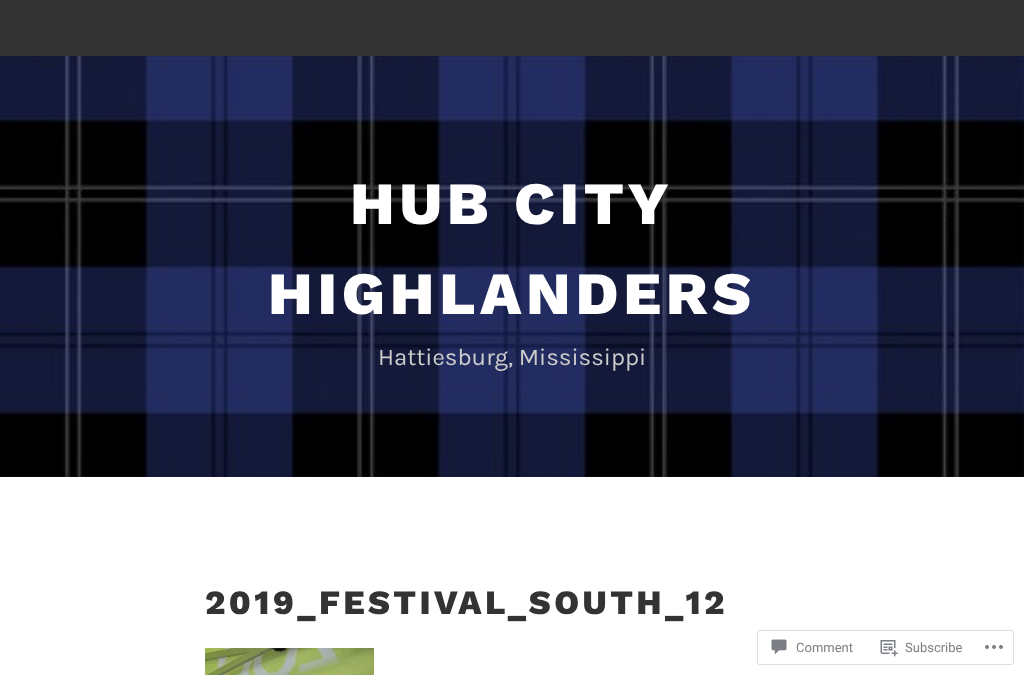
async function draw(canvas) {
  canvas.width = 1024
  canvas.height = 675
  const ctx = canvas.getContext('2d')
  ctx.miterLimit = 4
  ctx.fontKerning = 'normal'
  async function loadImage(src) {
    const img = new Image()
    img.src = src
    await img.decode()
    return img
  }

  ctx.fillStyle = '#fff'
  ctx.fillRect(0, 0, 1024, 675)
  ctx.fillStyle = '#333'
  ctx.fillRect(0, 0, 1024, 56)
  ctx.drawImage(await loadImage('image0.png'), 0, 56, 1024, 421)
  ctx.letterSpacing = '4.75px'
  ctx.font = '800 60px Work Sans'
  ctx.fillStyle = '#fff'
  ctx.fillText('HUB CITY', 350, 224)
  ctx.fillText('HIGHLANDERS', 268, 314)
  ctx.letterSpacing = '0px'
  ctx.font = '24px Karla'
  ctx.fillStyle = '#ccc'
  ctx.fillText('Hattiesburg, Mississippi', 378, 365)
  ctx.letterSpacing = '3.4px'
  ctx.font = '800 34px Work Sans'
  ctx.fillStyle = '#333'
  ctx.fillText('2019_FESTIVAL_SOUTH_12', 205, 614)
  ctx.drawImage(await loadImage('image1.png'), 205, 648, 169, 27)
  ctx.beginPath()
  ctx.roundRect(757.5, 630.5, 256, 34, 2.5)
  ctx.strokeStyle = '#dddddf'
  ctx.stroke()
  ctx.drawImage(await loadImage('image2.png'), 771, 639, 16, 16)
  ctx.letterSpacing = '0px'
  ctx.font = '13px Roboto'
  ctx.fillStyle = '#7b7f85'
  ctx.fillText('Comment', 796, 652)
  ctx.drawImage(await loadImage('image3.png'), 880, 640, 18, 17)
  ctx.fillText('Subscribe', 905, 652)
  ctx.drawImage(await loadImage('image4.png'), 985, 645, 18, 4)
}

draw(document.querySelector('canvas'))
